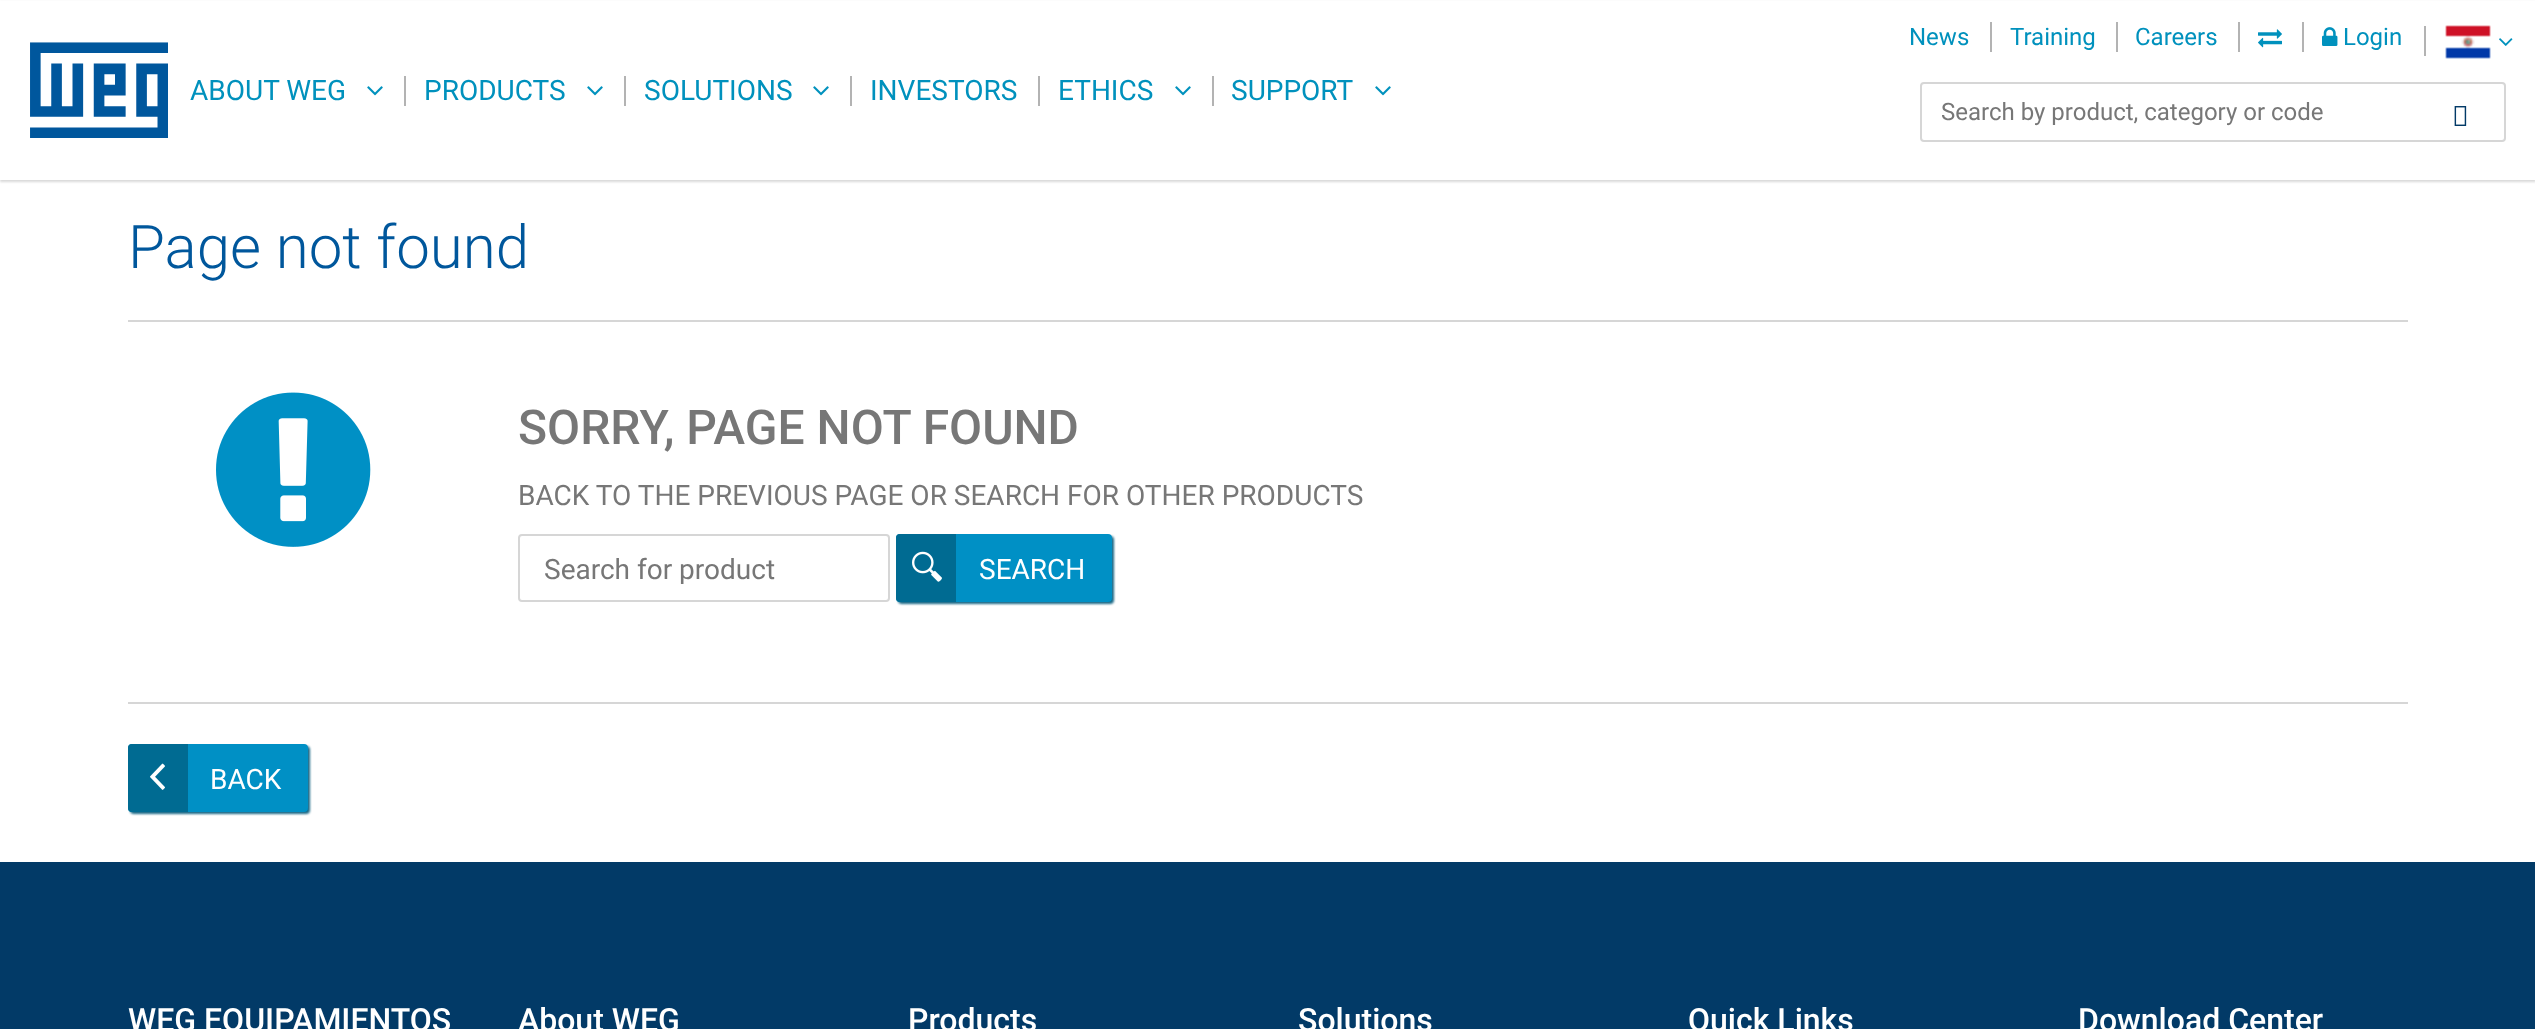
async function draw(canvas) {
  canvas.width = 2535
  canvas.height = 1029
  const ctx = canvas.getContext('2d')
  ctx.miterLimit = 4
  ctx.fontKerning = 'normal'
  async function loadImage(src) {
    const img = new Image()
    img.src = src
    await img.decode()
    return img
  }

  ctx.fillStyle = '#fff'
  ctx.fillRect(0, 0, 2535, 1029)
  ctx.fillStyle = '#00000026'
  ctx.filter = 'blur(1px)'
  ctx.beginPath()
  ctx.rect(0, 2, 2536, 180)
  ctx.fill()
  ctx.filter = 'none'
  ctx.fillStyle = '#fff'
  ctx.fillRect(0, 1, 2535, 179)
  ctx.drawImage(await loadImage('image0.png'), 30, 42, 138, 96)
  ctx.font = '28px Roboto'
  ctx.fillStyle = '#0091bd'
  ctx.fillText('ABOUT WEG', 190, 100)
  ctx.drawImage(await loadImage('image1.png'), 367, 86, 16, 10)
  ctx.fillStyle = '#b3b3b3'
  ctx.fillRect(404, 76, 2, 30)
  ctx.fillStyle = '#0091bd'
  ctx.fillText('PRODUCTS', 424, 100)
  ctx.drawImage(await loadImage('image1.png'), 587, 86, 16, 10)
  ctx.fillStyle = '#b3b3b3'
  ctx.fillRect(624, 76, 2, 30)
  ctx.fillStyle = '#0091bd'
  ctx.fillText('SOLUTIONS', 644, 100)
  ctx.drawImage(await loadImage('image1.png'), 813, 86, 16, 10)
  ctx.fillStyle = '#b3b3b3'
  ctx.fillRect(850, 76, 2, 30)
  ctx.fillStyle = '#0091bd'
  ctx.fillText('INVESTORS', 870, 100)
  ctx.fillStyle = '#b3b3b3'
  ctx.fillRect(1038, 76, 2, 30)
  ctx.fillStyle = '#0091bd'
  ctx.fillText('ETHICS', 1058, 100)
  ctx.drawImage(await loadImage('image1.png'), 1175, 86, 16, 10)
  ctx.fillStyle = '#b3b3b3'
  ctx.fillRect(1212, 76, 2, 30)
  ctx.fillStyle = '#0091bd'
  ctx.fillText('SUPPORT', 1231, 100)
  ctx.drawImage(await loadImage('image1.png'), 1375, 86, 16, 10)
  ctx.font = '24px Roboto'
  ctx.fillText('News', 1909, 45)
  ctx.fillStyle = '#b3b3b3'
  ctx.fillRect(1990, 22, 2, 30)
  ctx.fillStyle = '#0091bd'
  ctx.fillText('Training', 2010, 45)
  ctx.fillStyle = '#b3b3b3'
  ctx.fillRect(2116, 22, 2, 30)
  ctx.fillStyle = '#0091bd'
  ctx.fillText('Careers', 2135, 45)
  ctx.fillStyle = '#b3b3b3'
  ctx.fillRect(2238, 22, 2, 30)
  ctx.drawImage(await loadImage('image2.png'), 2258, 29, 24, 19)
  ctx.fillRect(2302, 22, 2, 30)
  ctx.drawImage(await loadImage('image3.png'), 2322, 27, 16, 19)
  ctx.fillStyle = '#0091bd'
  ctx.fillText('Login', 2343, 45)
  ctx.fillStyle = '#b3b3b3'
  ctx.fillRect(2424, 26, 2, 30)
  ctx.drawImage(await loadImage('image4.png'), 2445, 25, 46, 34)
  ctx.drawImage(await loadImage('image5.png'), 2499, 38, 14, 8)
  ctx.beginPath()
  ctx.roundRect(1921, 83, 584, 58, 3)
  ctx.strokeStyle = '#d6d6d6'
  ctx.lineWidth = 2
  ctx.stroke()
  ctx.fillStyle = '#777'
  ctx.fillText('Search by product, category or code', 1941, 120)
  ctx.drawImage(await loadImage('image6.png'), 2454, 106, 13, 20)
  ctx.fillStyle = '#d6d6d6'
  ctx.fillRect(128, 320, 2280, 2)
  ctx.font = '300 60px Roboto'
  ctx.fillStyle = '#00579c'
  ctx.fillText('Page not found', 128, 268)
  ctx.drawImage(await loadImage('image7.png'), 216, 392, 155, 155)
  ctx.font = '500 48px Roboto'
  ctx.fillStyle = '#777'
  ctx.fillText('SORRY, PAGE NOT FOUND', 518, 444)
  ctx.font = '28px Roboto'
  ctx.fillText('BACK TO THE PREVIOUS PAGE OR SEARCH FOR OTHER PRODUCTS', 518, 505)
  ctx.beginPath()
  ctx.roundRect(519, 535, 370, 66, 3)
  ctx.stroke()
  ctx.save()
  ctx.beginPath()
  ctx.rect(544, 552, 312, 32)
  ctx.clip()
  ctx.fillText('Search for product', 544, 579)
  ctx.restore()
  ctx.fillStyle = '#005879e6'
  ctx.filter = 'blur(1px)'
  ctx.beginPath()
  ctx.roundRect(898, 536, 216, 68, 4)
  ctx.fill()
  ctx.filter = 'none'
  ctx.fillStyle = '#0090c5'
  ctx.beginPath()
  ctx.roundRect(897, 535, 214, 66, 3)
  ctx.fill()
  ctx.strokeStyle = '#0090c5'
  ctx.stroke()
  ctx.fillStyle = '#006b92'
  ctx.beginPath()
  ctx.roundRect(897, 535, 58, 66, [3, 0, 0, 3])
  ctx.fill()
  ctx.strokeStyle = '#006b92'
  ctx.stroke()
  ctx.drawImage(await loadImage('image8.png'), 912, 551, 30, 31)
  ctx.fillStyle = '#fff'
  ctx.fillText('SEARCH', 979, 579)
  ctx.fillStyle = '#d6d6d6'
  ctx.fillRect(128, 702, 2280, 2)
  ctx.fillStyle = '#005879e6'
  ctx.filter = 'blur(1px)'
  ctx.beginPath()
  ctx.roundRect(130, 746, 180, 68, 4)
  ctx.fill()
  ctx.filter = 'none'
  ctx.fillStyle = '#0090c5'
  ctx.beginPath()
  ctx.roundRect(129, 745, 178, 66, 3)
  ctx.fill()
  ctx.strokeStyle = '#0090c5'
  ctx.stroke()
  ctx.fillStyle = '#006b92'
  ctx.beginPath()
  ctx.roundRect(129, 745, 58, 66, [3, 0, 0, 3])
  ctx.fill()
  ctx.strokeStyle = '#006b92'
  ctx.stroke()
  ctx.drawImage(await loadImage('image9.png'), 150, 763, 15, 27)
  ctx.fillStyle = '#fff'
  ctx.fillText('BACK', 210, 789)
  ctx.fillStyle = '#023a67'
  ctx.fillRect(0, 862, 2535, 167)
  ctx.font = '500 32px Roboto'
  ctx.fillStyle = '#fff'
  ctx.fillText('WEG EQUIPAMIENTOS', 128, 1031)
  ctx.fillText('About WEG', 518, 1031)
  ctx.fillText('Products', 908, 1031)
  ctx.fillText('Solutions', 1298, 1031)
  ctx.fillText('Quick Links', 1688, 1031)
  ctx.fillText('Download Center', 2078, 1031)
}

draw(document.querySelector('canvas'))
